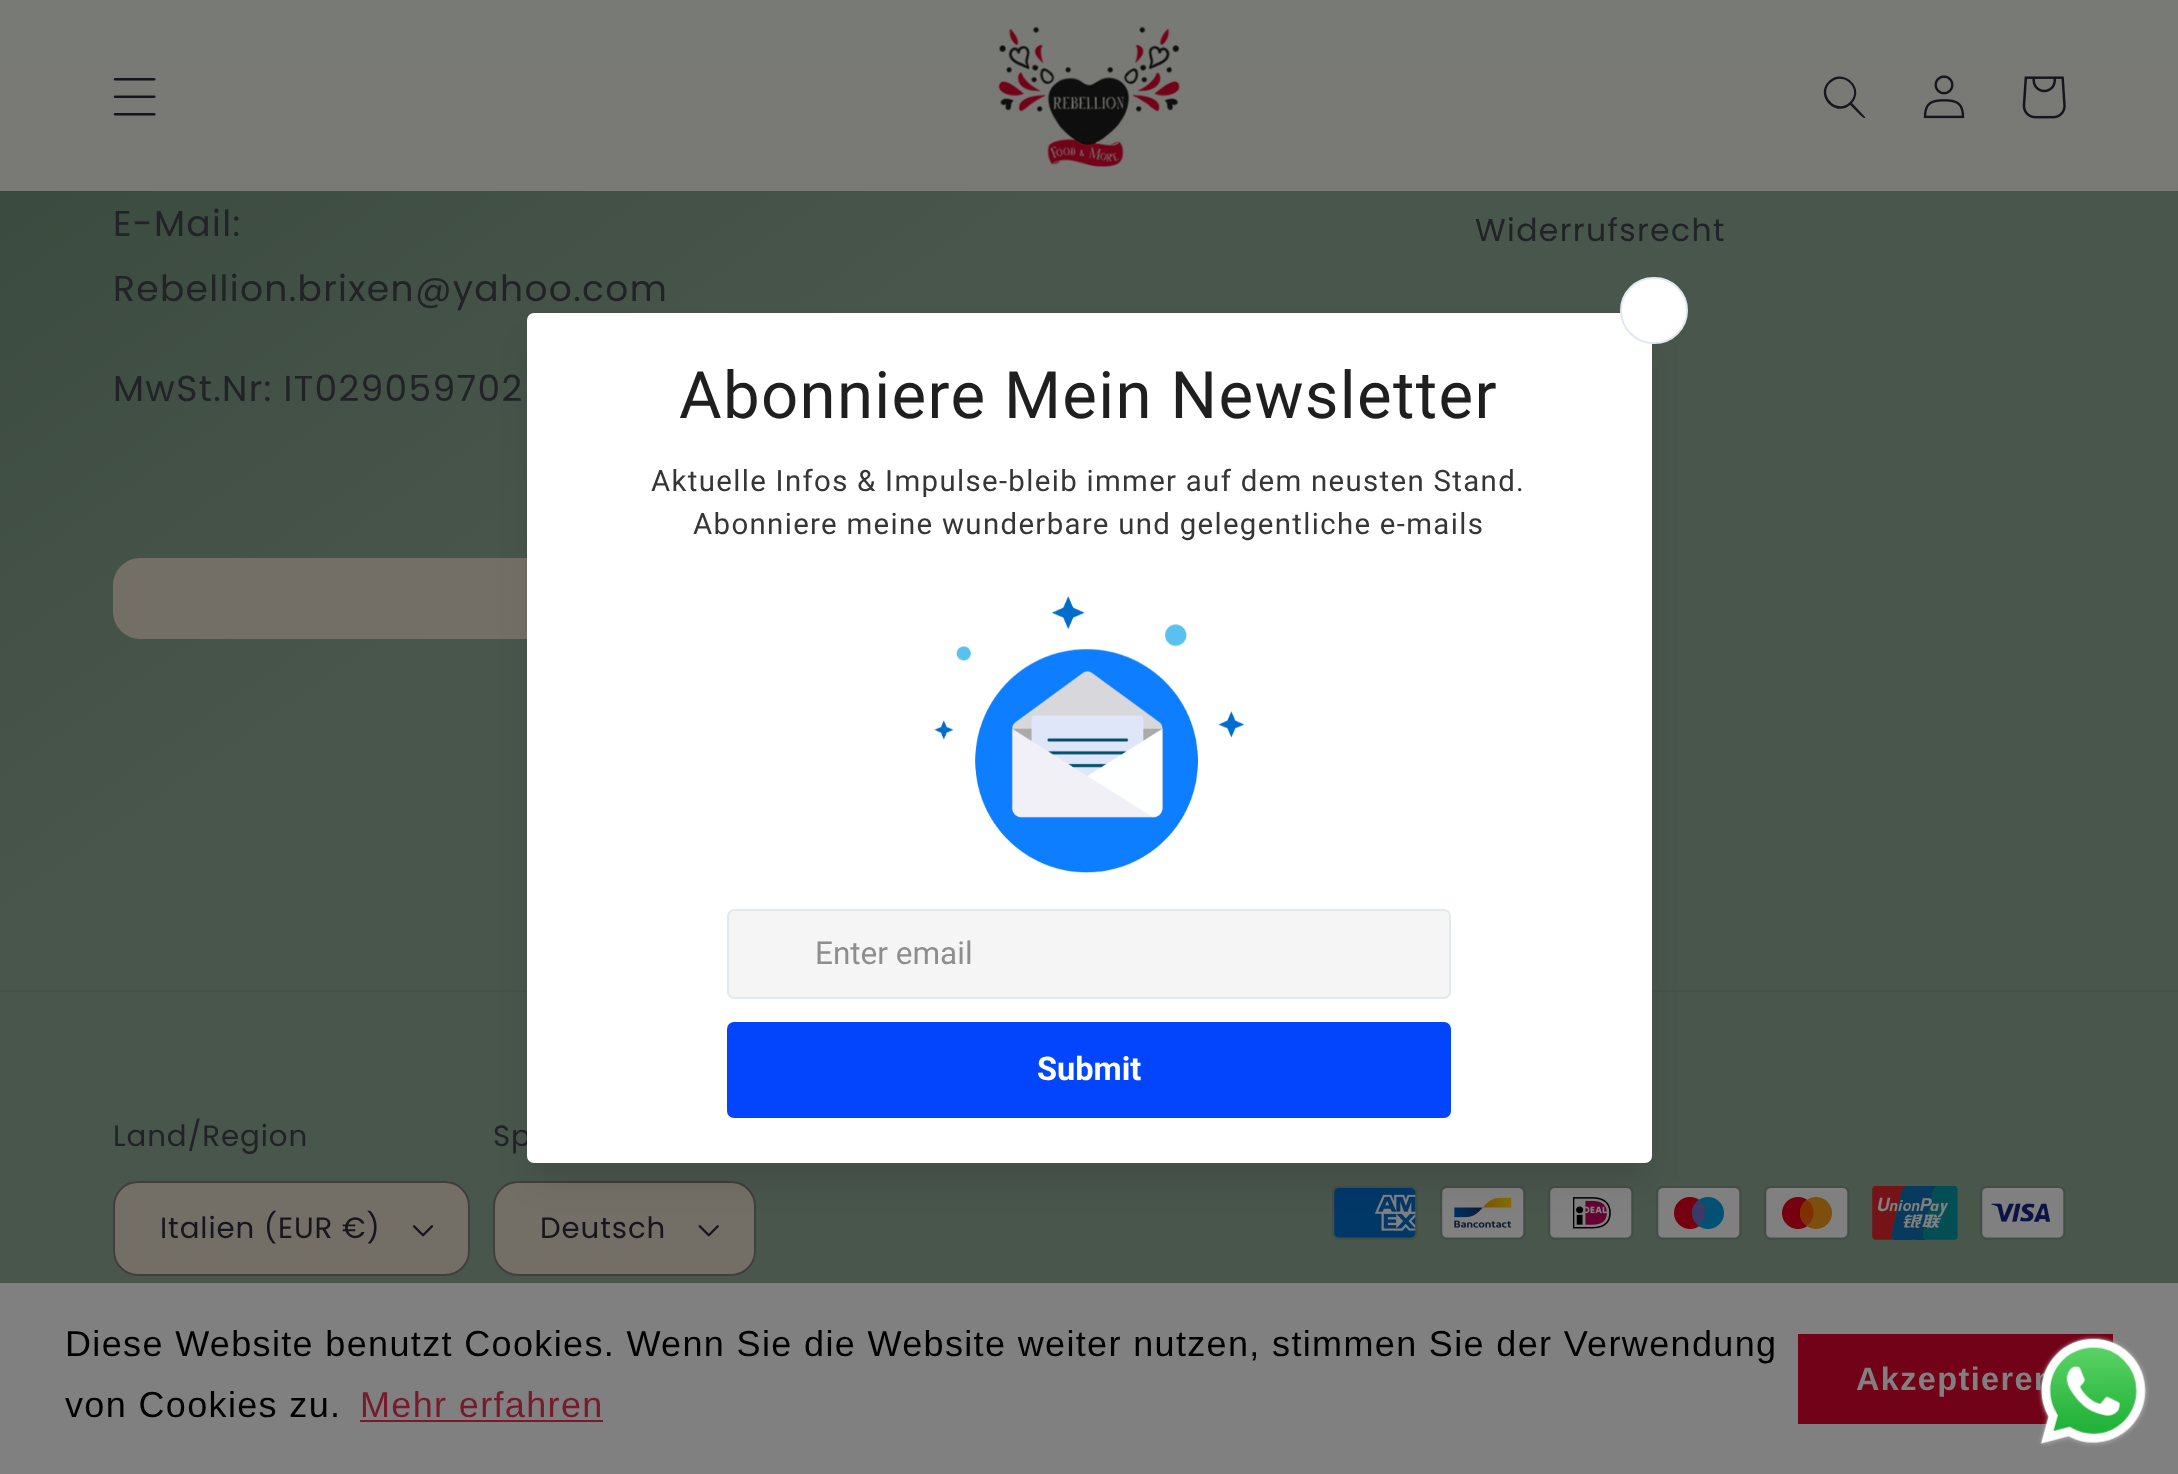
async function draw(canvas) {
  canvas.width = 2178
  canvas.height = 1474
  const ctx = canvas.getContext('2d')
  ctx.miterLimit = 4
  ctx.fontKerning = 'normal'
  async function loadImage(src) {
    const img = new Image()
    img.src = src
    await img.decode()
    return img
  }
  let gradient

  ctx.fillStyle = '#fff'
  ctx.fillRect(0, 0, 2178, 1474)
  gradient = ctx.createLinearGradient(1089, 0, 1089, 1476)
  gradient.addColorStop(0, '#787a76')
  gradient.addColorStop(0.98, '#797671')
  ctx.fillStyle = gradient
  ctx.fillRect(0, 0, 2178, 191)
  ctx.drawImage(await loadImage('image0.png'), 113, 78, 43, 38)
  ctx.drawImage(await loadImage('image1.png'), 998, 26, 182, 141)
  ctx.fillStyle = '#17151d'
  ctx.beginPath()
  ctx.moveTo(1850, 102)
  ctx.bezierCurveTo(1837, 115, 1818, 95, 1830, 83)
  ctx.bezierCurveTo(1843, 70, 1863, 89, 1850, 102)
  ctx.closePath()
  ctx.moveTo(1850, 105)
  ctx.bezierCurveTo(1835, 118, 1814, 95, 1829, 81)
  ctx.bezierCurveTo(1843, 67, 1866, 88, 1852, 103)
  ctx.lineTo(1865, 117)
  ctx.lineTo(1865, 118)
  ctx.bezierCurveTo(1863, 119, 1852, 106, 1850, 105)
  ctx.closePath()
  ctx.fill('evenodd')
  ctx.drawImage(await loadImage('image2.png'), 1923, 75, 42, 44)
  ctx.drawImage(await loadImage('image3.png'), 2022, 76, 44, 43)
  gradient = ctx.createLinearGradient(384, -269, 1794, 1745)
  gradient.addColorStop(0, '#38483b')
  gradient.addColorStop(0.32, '#49564c')
  ctx.fillStyle = gradient
  ctx.fillRect(0, 191, 2178, 1092)
  ctx.letterSpacing = '1.35px'
  ctx.font = '36px Poppins'
  ctx.fillStyle = '#212326'
  ctx.fillText('E-Mail:', 113, 236)
  ctx.fillText('Rebellion.brixen@yahoo.com', 113, 301)
  ctx.fillText('MwSt.Nr: IT029059702', 113, 401)
  ctx.font = '31.5px Poppins'
  ctx.fillText('Widerrufsrecht', 1475, 241)
  ctx.fillStyle = '#746f66'
  ctx.beginPath()
  ctx.roundRect(113, 558, 931, 81, 27)
  ctx.fill()
  ctx.fillStyle = '#455148'
  ctx.fillRect(0, 990, 2178, 2)
  ctx.letterSpacing = '0.9px'
  ctx.font = '29.25px Poppins'
  ctx.fillStyle = '#212326'
  ctx.fillText('Land/Region', 113, 1146)
  ctx.fillStyle = '#746f66'
  ctx.beginPath()
  ctx.roundRect(113, 1181, 357, 95, 25)
  ctx.fill()
  ctx.drawImage(await loadImage('image4.png'), 412, 1225, 22, 12)
  ctx.beginPath()
  ctx.roundRect(114, 1182, 355, 93, 24)
  ctx.strokeStyle = '#17151d8c'
  ctx.lineWidth = 2
  ctx.stroke()
  ctx.fillStyle = '#17151d'
  ctx.fillText('Italien (EUR €)', 160, 1238)
  ctx.fillStyle = '#212326'
  ctx.fillText('Sp', 493, 1146)
  ctx.fillStyle = '#746f66'
  ctx.beginPath()
  ctx.roundRect(493, 1181, 263, 95, 25)
  ctx.fill()
  ctx.drawImage(await loadImage('image5.png'), 698, 1225, 21, 12)
  ctx.beginPath()
  ctx.roundRect(494, 1182, 261, 93, 24)
  ctx.stroke()
  ctx.fillStyle = '#17151d'
  ctx.fillText('Deutsch', 540, 1238)
  ctx.drawImage(await loadImage('image6.png'), 1332, 1186, 86, 54)
  ctx.drawImage(await loadImage('image7.png'), 1440, 1186, 86, 54)
  ctx.drawImage(await loadImage('image8.png'), 1548, 1186, 86, 54)
  ctx.drawImage(await loadImage('image9.png'), 1656, 1186, 86, 54)
  ctx.drawImage(await loadImage('image10.png'), 1764, 1186, 86, 54)
  ctx.drawImage(await loadImage('image11.png'), 1872, 1186, 86, 54)
  ctx.drawImage(await loadImage('image12.png'), 1980, 1186, 86, 54)
  ctx.fillStyle = '#0000001a'
  ctx.filter = 'blur(17px)'
  ctx.beginPath()
  ctx.rect(533, 342, 1112, 837)
  ctx.fill()
  ctx.filter = 'none'
  ctx.save()
  ctx.beginPath()
  ctx.rect(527, 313, 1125, 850)
  ctx.clip()
  ctx.fillStyle = '#0000001f'
  ctx.filter = 'blur(22.5px)'
  ctx.beginPath()
  ctx.rect(533, 320, 1112, 837)
  ctx.fill()
  ctx.filter = 'none'
  ctx.restore()
  ctx.fillStyle = '#fff'
  ctx.beginPath()
  ctx.roundRect(527, 313, 1125, 850, 7)
  ctx.fill()
  ctx.beginPath()
  ctx.roundRect(1621, 278, 66, 65, 32.5)
  ctx.fill()
  ctx.strokeStyle = '#e2e8f0'
  ctx.stroke()
  ctx.letterSpacing = '1.35px'
  ctx.font = '65.3px Roboto'
  ctx.fillStyle = '#1f1f1f'
  ctx.fillText('Abonniere Mein Newsletter', 679, 418)
  ctx.wordSpacing = '-0.25px'
  ctx.font = '29.4px Roboto'
  ctx.fillStyle = '#363636'
  ctx.fillText('Aktuelle Infos & Impulse-bleib immer auf dem neusten Stand.', 651, 491)
  ctx.fillText('Abonniere meine wunderbare und gelegentliche e-mails', 693, 534)
  ctx.drawImage(await loadImage('image13.png'), 934, 596, 311, 277)
  ctx.fillStyle = '#f5f5f5'
  ctx.beginPath()
  ctx.roundRect(728, 910, 722, 88, 6)
  ctx.fill()
  ctx.stroke()
  ctx.letterSpacing = '0px'
  ctx.wordSpacing = '0px'
  ctx.font = '31.5px Roboto'
  ctx.fillStyle = '#8e8e8e'
  ctx.fillText('Enter email', 815, 964)
  ctx.fillStyle = '#0345fc'
  ctx.beginPath()
  ctx.roundRect(727, 1022, 724, 96, 7)
  ctx.fill()
  ctx.font = 'bold 32.5px Roboto'
  ctx.fillStyle = '#fff'
  ctx.fillText('Submit', 1037, 1080)
  ctx.fillStyle = '#808080'
  ctx.fillRect(0, 1283, 2178, 191)
  ctx.letterSpacing = '1.35px'
  ctx.font = '36px Liberation Sans'
  ctx.fillStyle = '#000'
  ctx.fillText('Diese Website benutzt Cookies. Wenn Sie die Website weiter nutzen, stimmen Sie der Verwendung', 65, 1356)
  ctx.fillText('von Cookies zu.', 65, 1417)
  ctx.fillStyle = '#751b2d'
  ctx.fillText('Mehr erfahren', 360, 1417)
  ctx.fillRect(360, 1420, 243, 2)
  ctx.fillStyle = '#720218'
  ctx.fillRect(1798, 1334, 315, 90)
  ctx.font = 'bold 32.5px Liberation Sans'
  ctx.fillStyle = '#808080'
  ctx.fillText('Akzeptieren', 1856, 1390)
  ctx.drawImage(await loadImage('image14.png'), 2037, 1335, 112, 112)
}

draw(document.querySelector('canvas'))
